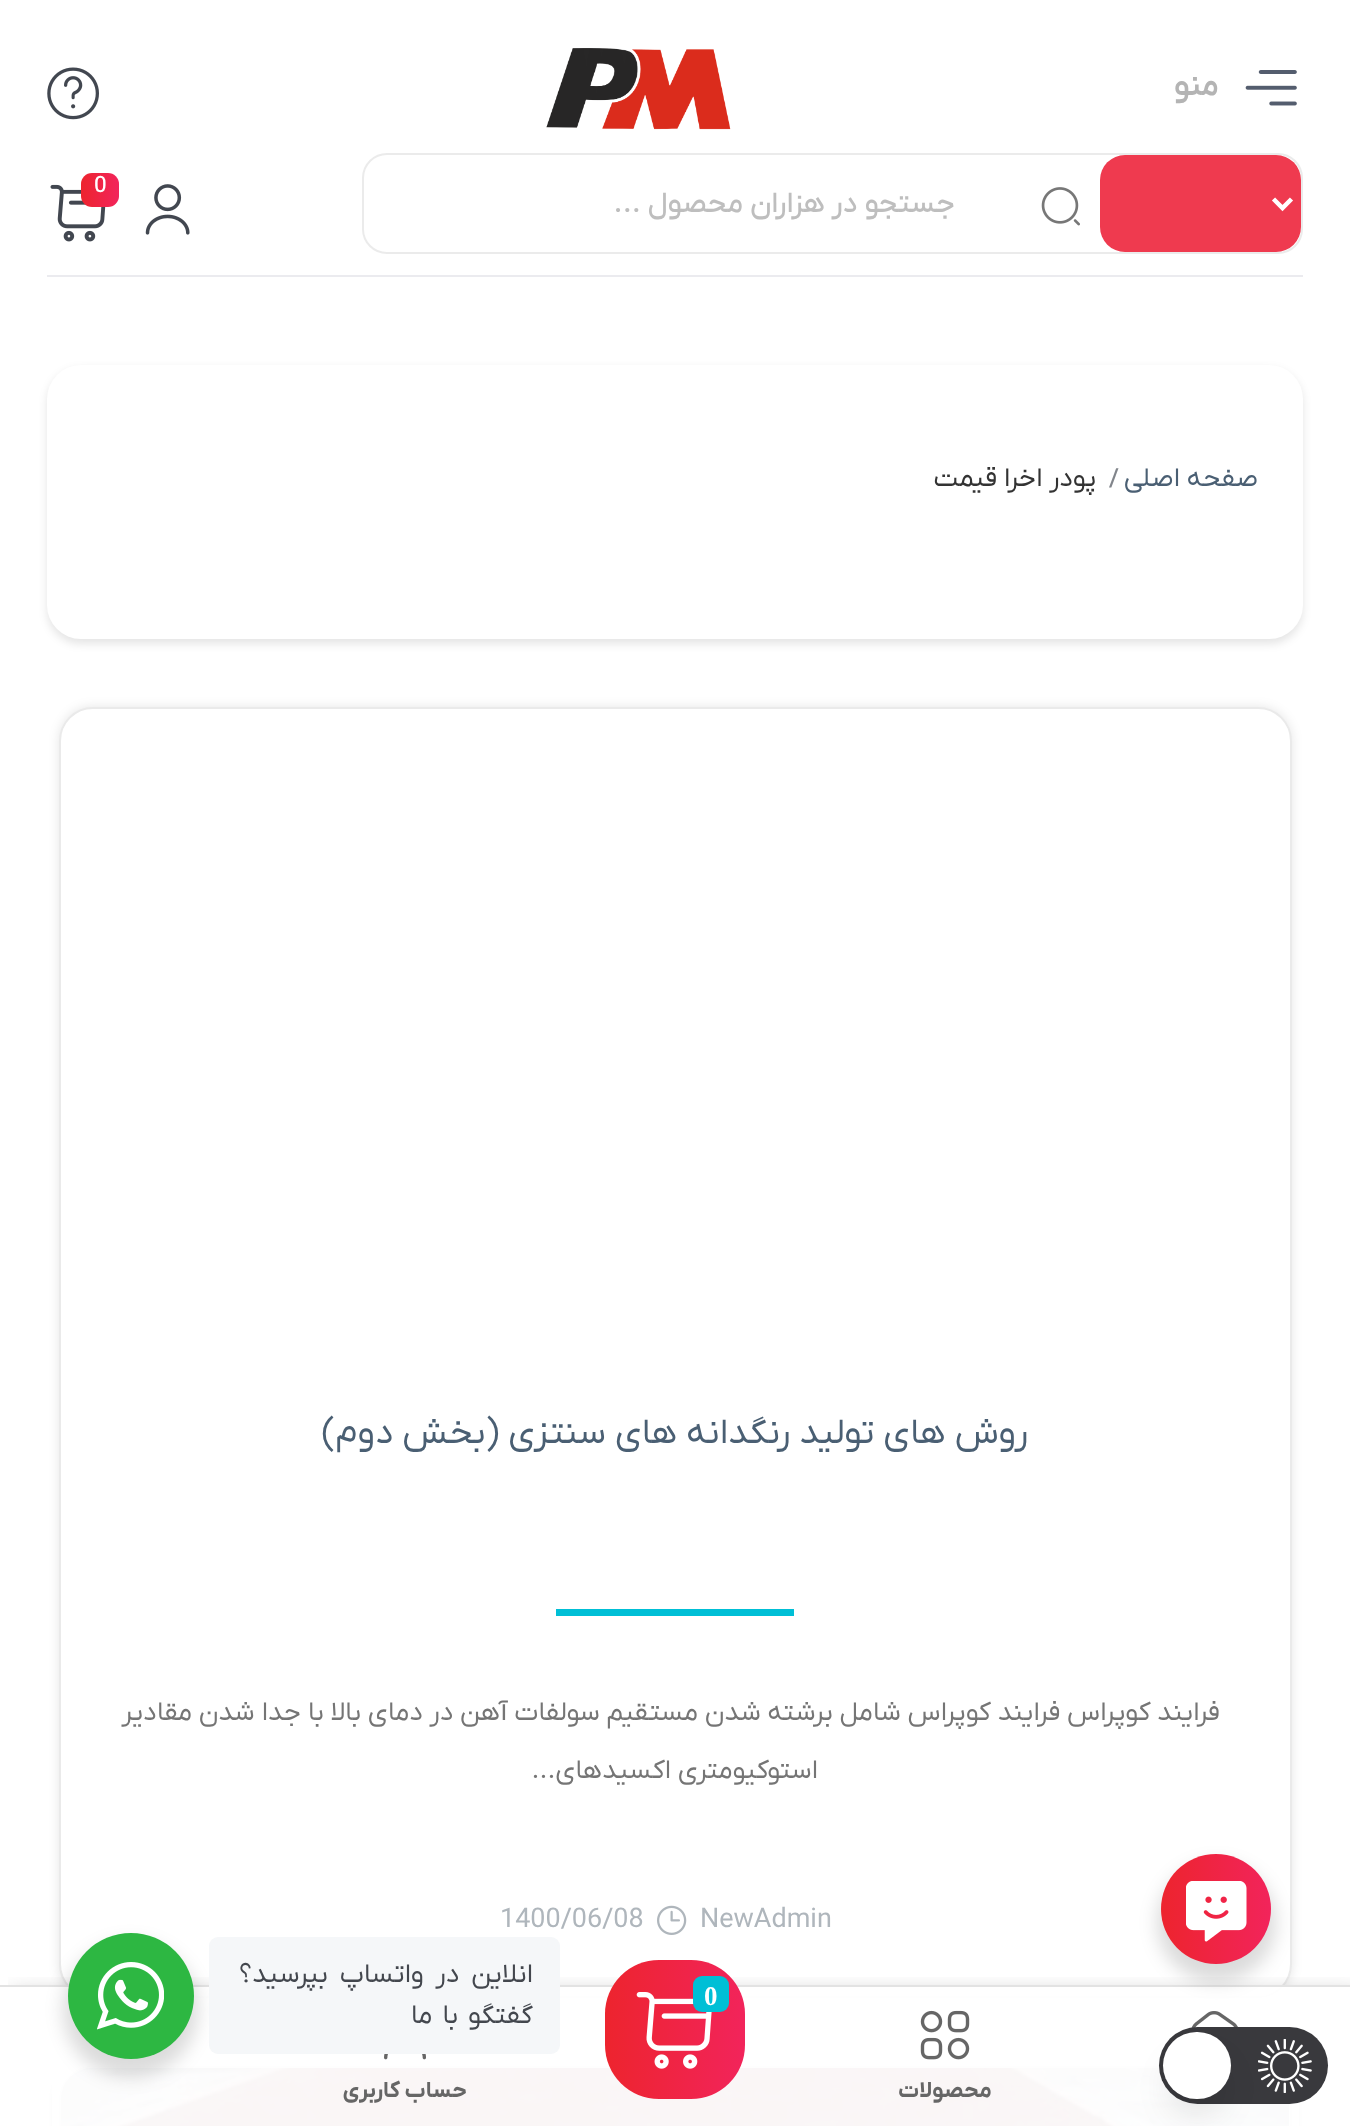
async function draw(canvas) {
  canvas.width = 1350
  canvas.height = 2126
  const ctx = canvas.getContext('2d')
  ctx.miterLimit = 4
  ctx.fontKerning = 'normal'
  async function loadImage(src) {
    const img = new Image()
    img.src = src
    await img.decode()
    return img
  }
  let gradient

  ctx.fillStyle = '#fff'
  ctx.fillRect(0, 0, 1350, 2126)
  ctx.drawImage(await loadImage('image0.png'), 1245, 70, 52, 36)
  ctx.direction = 'rtl'
  ctx.font = '600 32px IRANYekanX'
  ctx.fillStyle = '#b4b4b4'
  ctx.fillText('منو', 1219, 95)
  ctx.drawImage(await loadImage('image1.png'), 546, 48, 185, 82)
  ctx.drawImage(await loadImage('image2.png'), 47, 67, 52, 53)
  ctx.fillStyle = '#ebebef'
  ctx.fillRect(47, 275, 1256, 2)
  ctx.drawImage(await loadImage('image3.png'), 145, 184, 45, 51)
  ctx.drawImage(await loadImage('image4.png'), 50, 184, 56, 58)
  gradient = ctx.createLinearGradient(81, 190, 119, 190)
  gradient.addColorStop(0, '#ed242e')
  gradient.addColorStop(1, '#f2245b')
  ctx.fillStyle = gradient
  ctx.beginPath()
  ctx.roundRect(81, 173, 38, 34, 11)
  ctx.fill()
  ctx.direction = 'ltr'
  ctx.font = '500 22.5px IRANYekanX'
  ctx.fillStyle = '#fff'
  ctx.fillText('0', 94, 192)
  ctx.beginPath()
  ctx.roundRect(363, 154, 939, 99, 24)
  ctx.strokeStyle = '#ebebeb'
  ctx.lineWidth = 2
  ctx.stroke()
  ctx.fillStyle = '#ef3a4f'
  ctx.beginPath()
  ctx.roundRect(1100, 155, 201, 97, 25)
  ctx.fill()
  ctx.beginPath()
  ctx.moveTo(1273.5, 199)
  ctx.lineTo(1282.5, 208)
  ctx.lineTo(1291.5, 199)
  ctx.strokeStyle = '#fff'
  ctx.lineWidth = 4.5
  ctx.stroke()
  ctx.drawImage(await loadImage('image5.png'), 1041, 187, 39, 39)
  ctx.direction = 'rtl'
  ctx.font = '500 29.25px IRANYekanX'
  ctx.fillStyle = '#bebebe'
  ctx.fillText('جستجو در هزاران محصول ...', 955, 212)
  ctx.fillStyle = '#0000001a'
  ctx.filter = 'blur(4.5px)'
  ctx.beginPath()
  ctx.roundRect(47, 369, 1256, 275, 34)
  ctx.fill()
  ctx.filter = 'none'
  ctx.fillStyle = '#fff'
  ctx.beginPath()
  ctx.roundRect(47, 365, 1256, 274, 34)
  ctx.fill()
  ctx.font = '27px IRANYekanX'
  ctx.fillStyle = '#4a5f73'
  ctx.fillText('صفحه اصلی', 1258, 486)
  ctx.direction = 'ltr'
  ctx.font = '500 25px IRANYekanX'
  ctx.fillStyle = '#81858b'
  ctx.fillText('/', 1109, 486)
  ctx.direction = 'rtl'
  ctx.font = '27px IRANYekanX'
  ctx.fillStyle = '#333'
  ctx.fillText('پودر اخرا قیمت', 1096, 486)
  ctx.fillStyle = '#0000001a'
  ctx.filter = 'blur(5.5px)'
  ctx.beginPath()
  ctx.roundRect(59, 707, 1233, 1291, 34)
  ctx.fill()
  ctx.filter = 'none'
  ctx.fillStyle = '#fff'
  ctx.beginPath()
  ctx.roundRect(60, 708, 1231, 1289, 33)
  ctx.fill()
  ctx.strokeStyle = '#eaeaea'
  ctx.lineWidth = 2
  ctx.stroke()
  ctx.font = '36px IRANYekanX'
  ctx.fillStyle = '#4a5f73'
  ctx.fillText('روش های تولید رنگدانه های سنتزی (بخش دوم)', 1028, 1443)
  ctx.fillStyle = '#00bfd6'
  ctx.fillRect(556, 1609, 238, 7)
  ctx.font = '27px IRANYekanX'
  ctx.fillStyle = '#757575'
  ctx.fillText('فرایند کوپراس فرایند کوپراس شامل برشته شدن مستقیم سولفات آهن در دمای بالا با جدا شدن مقادیر', 1220, 1720)
  ctx.fillText('استوکیومتری اکسیدهای...', 818, 1778)
  ctx.direction = 'ltr'
  ctx.fillStyle = '#afb6bc'
  ctx.fillText('NewAdmin', 700, 1927)
  ctx.drawImage(await loadImage('image6.png'), 657, 1905, 30, 30)
  ctx.fillText('1400/06/08', 500, 1927)
  ctx.fillStyle = '#0000001a'
  ctx.filter = 'blur(5.5px)'
  ctx.beginPath()
  ctx.roundRect(59, 2066, 1233, 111, 34)
  ctx.fill()
  ctx.filter = 'none'
  ctx.fillStyle = '#fff'
  ctx.beginPath()
  ctx.roundRect(60, 2067, 1231, 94, 33)
  ctx.fill()
  ctx.stroke()
  ctx.drawImage(await loadImage('image7.png'), 61, 2067, 1228, 59)
  ctx.save()
  ctx.beginPath()
  ctx.rect(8, 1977, 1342, 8)
  ctx.clip()
  ctx.fillStyle = '#00000066'
  ctx.filter = 'blur(12.5px)'
  ctx.beginPath()
  ctx.rect(11, 1998, 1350, 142)
  ctx.fill()
  ctx.filter = 'none'
  ctx.restore()
  ctx.fillStyle = '#fffffff2'
  ctx.fillRect(52, 1987, 1247, 139)
  ctx.fillStyle = '#e3e3e3'
  ctx.fillRect(0, 1985, 1350, 2)
  ctx.fillStyle = '#00000024'
  ctx.filter = 'blur(9px)'
  ctx.beginPath()
  ctx.roundRect(1157, 1863, 119, 119, 59.5)
  ctx.fill()
  ctx.filter = 'none'
  gradient = ctx.createLinearGradient(1161, 1909, 1271, 1909)
  gradient.addColorStop(0, '#ed242e')
  gradient.addColorStop(1, '#f2245b')
  ctx.fillStyle = gradient
  ctx.beginPath()
  ctx.arc(1216, 1909, 55, 0, 2 * Math.PI)
  ctx.fill()
  ctx.drawImage(await loadImage('image8.png'), 1186, 1881, 61, 61)
  ctx.fillStyle = '#00000024'
  ctx.filter = 'blur(9px)'
  ctx.beginPath()
  ctx.roundRect(63, 1942, 135, 135, 67.5)
  ctx.fill()
  ctx.filter = 'none'
  ctx.fillStyle = '#f5f7f9'
  ctx.beginPath()
  ctx.roundRect(209, 1937, 351, 117, 9)
  ctx.fill()
  ctx.letterSpacing = '-0.8px'
  ctx.wordSpacing = '6px'
  ctx.direction = 'rtl'
  ctx.fillStyle = '#43474e'
  ctx.fillText('انلاین در واتساپ بپرسید؟', 533, 1982)
  ctx.wordSpacing = '4px'
  ctx.fillText('گفتگو با ما', 533, 2023)
  ctx.fillStyle = '#2db742'
  ctx.beginPath()
  ctx.arc(131, 1996, 63, 0, 2 * Math.PI)
  ctx.fill()
  ctx.drawImage(await loadImage('image9.png'), 97, 1962, 67, 68)
  ctx.drawImage(await loadImage('image12.png'), 1191, 2011, 47, 17)
  ctx.fillStyle = '#39393d'
  ctx.beginPath()
  ctx.roundRect(1159, 2027, 169, 77, 38.5)
  ctx.fill()
  ctx.drawImage(await loadImage('image10.png'), 1258, 2039, 54, 54)
  ctx.fillStyle = '#0000001a'
  ctx.filter = 'blur(17px)'
  ctx.beginPath()
  ctx.roundRect(1170, 2061, 54, 54, 27)
  ctx.fill()
  ctx.filter = 'none'
  ctx.fillStyle = '#fff'
  ctx.beginPath()
  ctx.roundRect(1163, 2032, 68, 67, 33.5)
  ctx.fill()
  gradient = ctx.createLinearGradient(605, 2030, 745, 2030)
  gradient.addColorStop(0, '#ed242e')
  gradient.addColorStop(1, '#f2245b')
  ctx.fillStyle = gradient
  ctx.beginPath()
  ctx.roundRect(605, 1960, 140, 139, 54)
  ctx.fill()
  ctx.drawImage(await loadImage('image11.png'), 636, 1992, 76, 77)
  ctx.fillStyle = '#00bfd6'
  ctx.beginPath()
  ctx.roundRect(693, 1976, 36, 36, 9)
  ctx.fill()
  ctx.letterSpacing = '0px'
  ctx.wordSpacing = '0px'
  ctx.direction = 'ltr'
  ctx.font = 'bold 27px Liberation Serif'
  ctx.fillStyle = '#fff'
  ctx.fillText('0', 704, 2005)
  ctx.drawImage(await loadImage('image13.png'), 920, 2010, 50, 50)
  ctx.direction = 'rtl'
  ctx.font = 'bold 22.5px IRANYekanX'
  ctx.fillStyle = '#666'
  ctx.fillText('محصولات', 992, 2097)
  ctx.drawImage(await loadImage('image14.png'), 384, 2054, 42, 6)
  ctx.fillText('حساب کاربری', 467, 2097)
}

draw(document.querySelector('canvas'))
